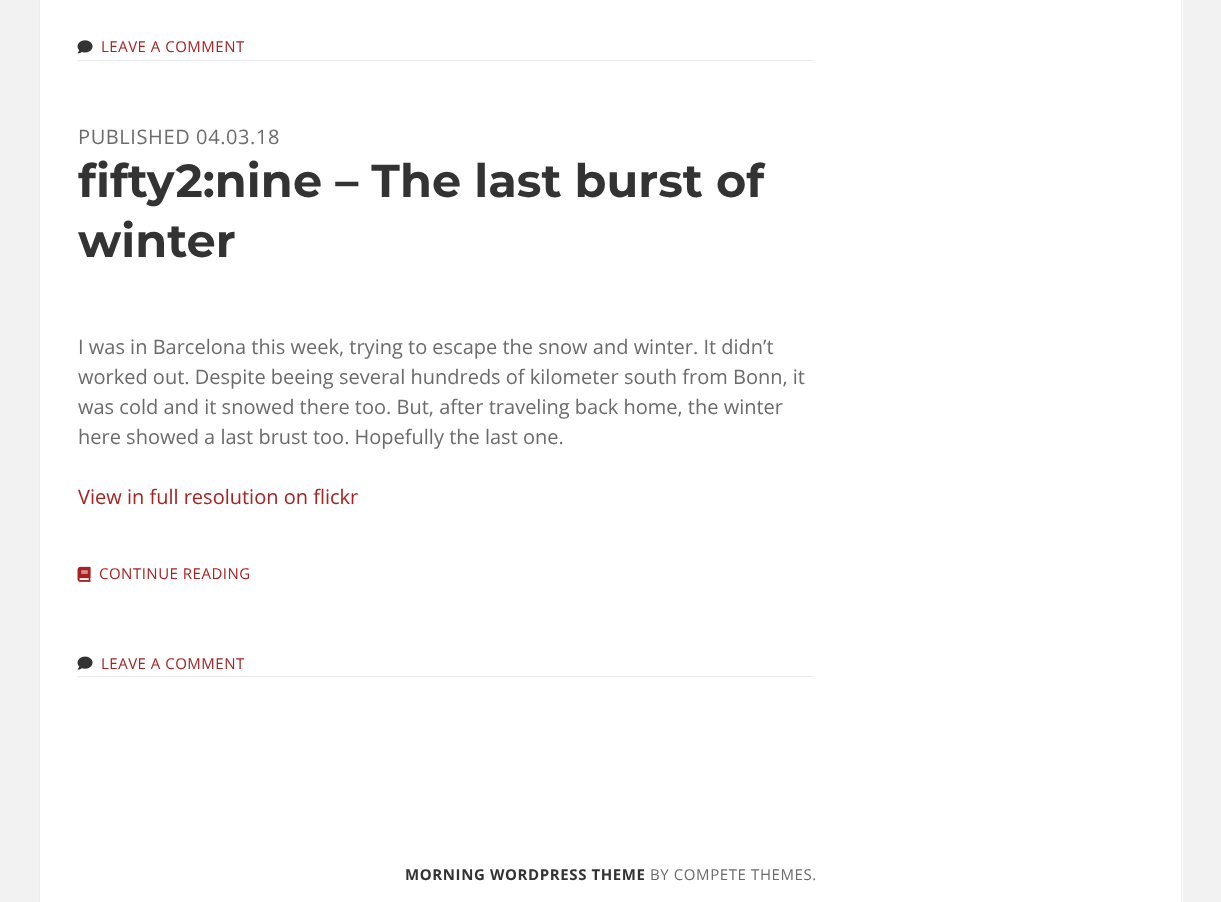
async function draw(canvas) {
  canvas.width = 1221
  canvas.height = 902
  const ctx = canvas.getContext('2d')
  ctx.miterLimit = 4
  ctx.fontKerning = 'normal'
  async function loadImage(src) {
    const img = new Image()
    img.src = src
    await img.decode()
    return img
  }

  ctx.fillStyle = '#f2f2f2'
  ctx.fillRect(0, 0, 1221, 902)
  ctx.fillStyle = '#fff'
  ctx.fillRect(40, 0, 1143, 902)
  ctx.fillStyle = '#ededed'
  ctx.fillRect(1181, 0, 1, 902)
  ctx.fillRect(39, 0, 1, 902)
  ctx.fillStyle = '#e8e8e8'
  ctx.fillRect(78, 60, 735, 1)
  ctx.drawImage(await loadImage('image0.png'), 77, 40, 16, 14)
  ctx.letterSpacing = '0.5px'
  ctx.font = '15px Open Sans'
  ctx.fillStyle = '#a72222'
  ctx.fillText('LEAVE A COMMENT', 101, 52)
  ctx.letterSpacing = '0.6px'
  ctx.font = '20px Open Sans'
  ctx.fillStyle = '#6b6b6b'
  ctx.fillText('PUBLISHED 04.03.18', 78, 144)
  ctx.letterSpacing = '0px'
  ctx.font = 'bold 46.25px Montserrat'
  ctx.fillStyle = '#333'
  ctx.fillText('fifty2:nine – The last burst of', 78, 197)
  ctx.fillText('winter', 78, 257)
  ctx.fillStyle = '#e8e8e8'
  ctx.fillRect(78, 676, 735, 1)
  ctx.font = '20px Open Sans'
  ctx.fillStyle = '#6b6b6b'
  ctx.fillText('I was in Barcelona this week, trying to escape the snow and winter. It didn’t', 78, 354)
  ctx.fillText('worked out. Despite beeing several hundreds of kilometer south from Bonn, it', 78, 384)
  ctx.fillText('was cold and it snowed there too. But, after traveling back home, the winter', 78, 414)
  ctx.fillText('here showed a last brust too. Hopefully the last one.', 78, 444)
  ctx.fillStyle = '#a72222'
  ctx.fillText('View in full resolution on flickr', 78, 504)
  ctx.drawImage(await loadImage('image1.png'), 77, 566, 14, 16)
  ctx.letterSpacing = '0.5px'
  ctx.font = '15px Open Sans'
  ctx.fillText('CONTINUE READING', 99, 579)
  ctx.drawImage(await loadImage('image2.png'), 77, 656, 16, 14)
  ctx.fillText('LEAVE A COMMENT', 101, 669)
  ctx.letterSpacing = '0.6px'
  ctx.font = 'bold 15px Open Sans'
  ctx.fillStyle = '#333'
  ctx.fillText('MORNING WORDPRESS THEME', 405, 880)
  ctx.font = '15px Open Sans'
  ctx.fillStyle = '#6b6b6b'
  ctx.fillText('BY COMPETE THEMES.', 650, 880)
}

draw(document.querySelector('canvas'))
